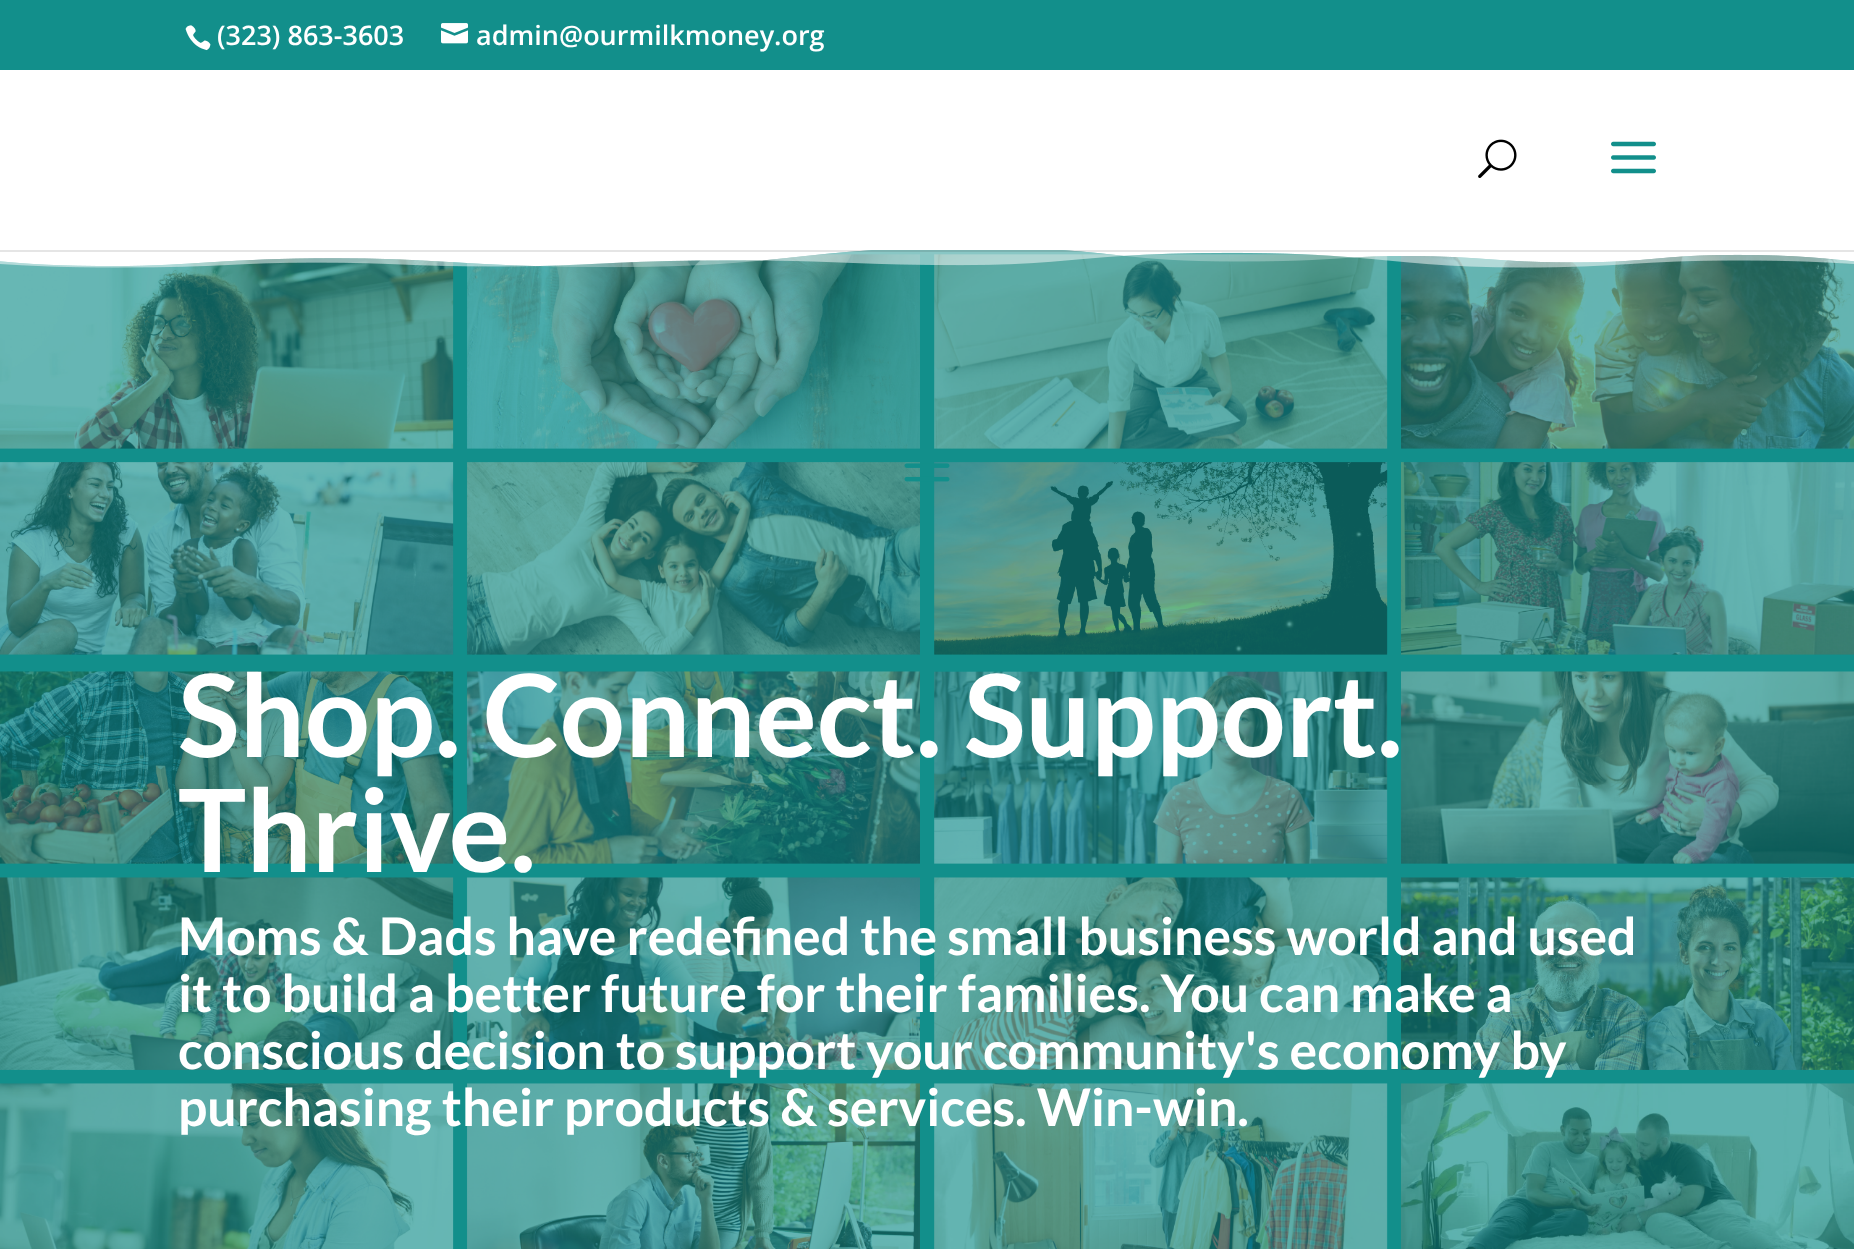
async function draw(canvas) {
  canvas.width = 1854
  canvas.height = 1249
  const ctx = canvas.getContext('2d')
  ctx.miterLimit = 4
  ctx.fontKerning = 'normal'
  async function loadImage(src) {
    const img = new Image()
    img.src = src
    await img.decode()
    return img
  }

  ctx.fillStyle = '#128f8b'
  ctx.fillRect(0, 0, 1854, 1249)
  ctx.drawImage(await loadImage('image0.png'), 185, 25, 26, 26)
  ctx.font = '600 27px Open Sans'
  ctx.fillStyle = '#fff'
  ctx.fillText('(323) 863-3603', 217, 45)
  ctx.drawImage(await loadImage('image1.png'), 441, 23, 27, 21)
  ctx.fillText('admin@ourmilkmoney.org', 476, 45)
  ctx.drawImage(await loadImage('image4.png'), 0, 250, 1854, 999)
  ctx.drawImage(await loadImage('image5.png'), 0, 250, 1854, 18)
  ctx.fillStyle = '#0000001a'
  ctx.fillRect(0, 250, 1854, 2)
  ctx.fillStyle = '#fff'
  ctx.fillRect(0, 70, 1854, 180)
  ctx.drawImage(await loadImage('image2.png'), 1478, 139, 39, 39)
  ctx.drawImage(await loadImage('image3.png'), 1611, 141, 45, 33)
  ctx.drawImage(await loadImage('image6.png'), 904, 463, 46, 19)
  ctx.font = 'bold 114.75px Lato'
  ctx.fillText('Shop. Connect. Support.', 178, 757)
  ctx.fillText('Thrive.', 178, 872)
  ctx.font = 'bold 51.75px Lato'
  ctx.fillText('Moms & Dads have redefined the small business world and used', 178, 955)
  ctx.fillText('it to build a better future for their families. You can make a', 178, 1012)
  ctx.fillText('conscious decision to support your community\'s economy by', 178, 1069)
  ctx.fillText('purchasing their products & services. Win-win.', 178, 1126)
}

draw(document.querySelector('canvas'))
